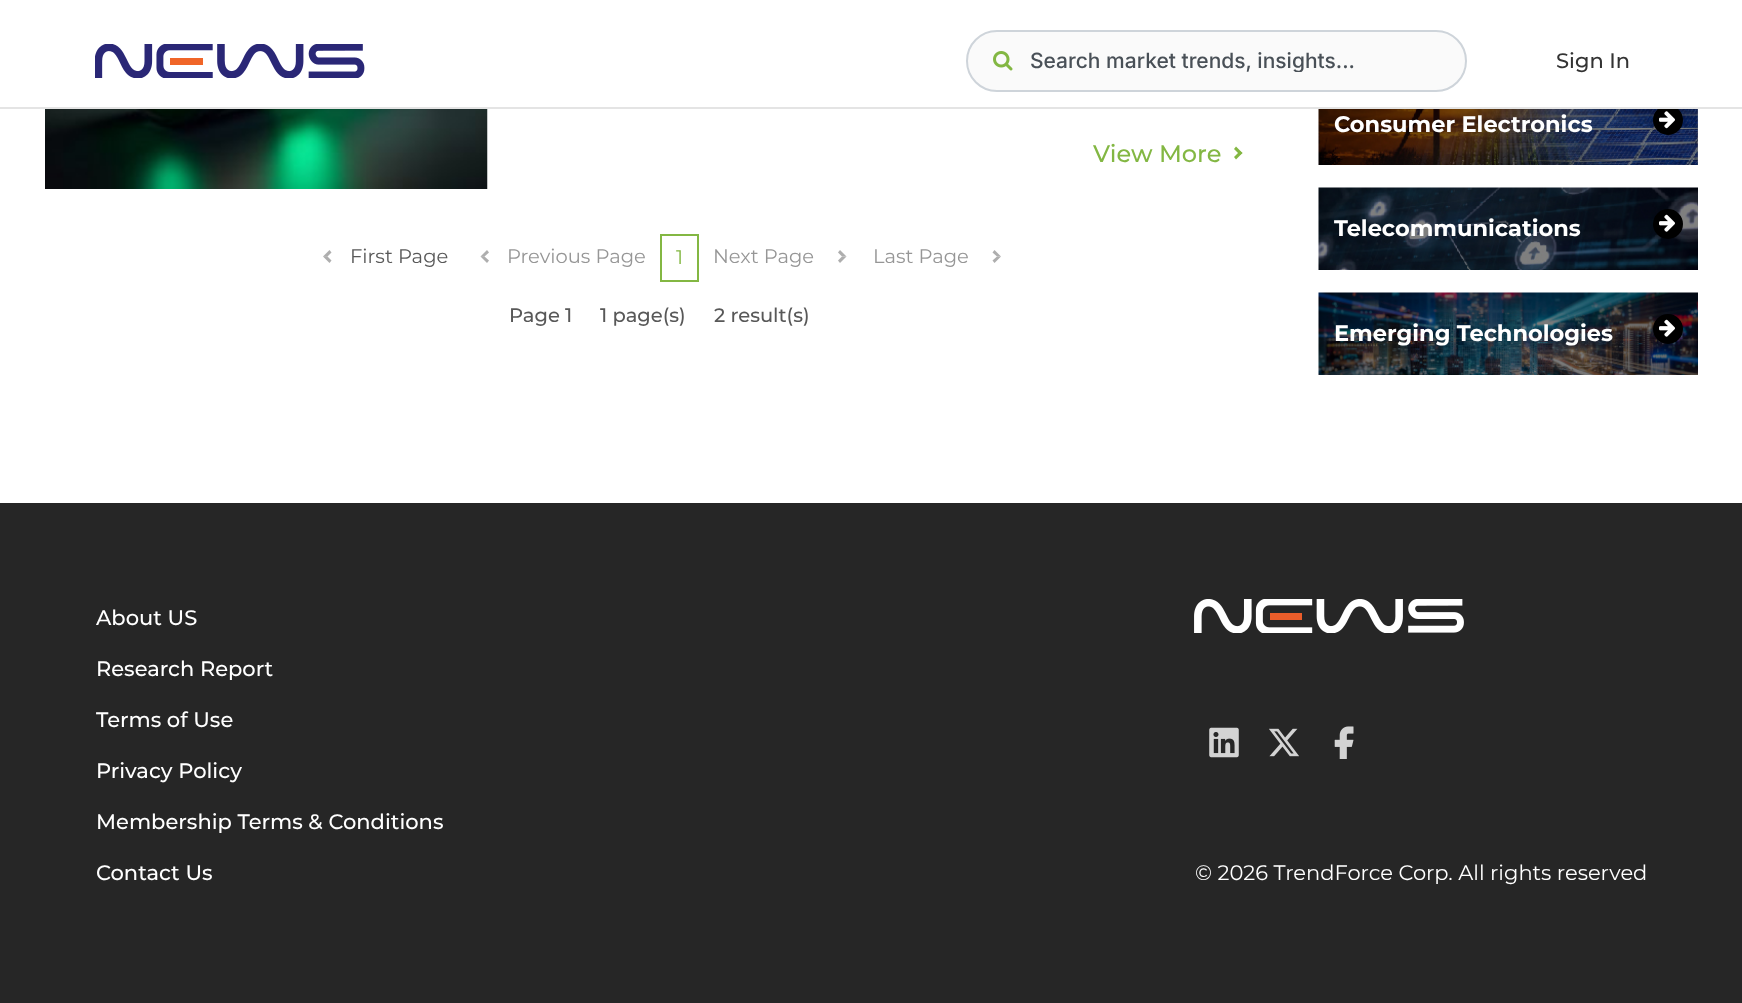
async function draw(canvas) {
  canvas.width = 1742
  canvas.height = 1003
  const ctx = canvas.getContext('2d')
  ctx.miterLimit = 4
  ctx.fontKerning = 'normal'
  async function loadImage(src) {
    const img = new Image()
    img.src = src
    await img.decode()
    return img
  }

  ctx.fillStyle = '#fff'
  ctx.fillRect(0, 0, 1742, 1003)
  ctx.drawImage(await loadImage('image3.png'), 1318, 109, 380, 56)
  ctx.fillStyle = '#000'
  ctx.beginPath()
  ctx.arc(1668, 120, 15, 0, 2 * Math.PI)
  ctx.fill()
  ctx.fillStyle = '#fff'
  ctx.fillRect(1660, 105, 16, 2)
  ctx.fillStyle = '#e4e4e4'
  ctx.fillRect(0, 107, 1742, 2)
  ctx.drawImage(await loadImage('image0.png'), 95, 44, 270, 34)
  ctx.fillStyle = '#fafafa'
  ctx.beginPath()
  ctx.roundRect(967, 31, 499, 60, 30)
  ctx.fill()
  ctx.strokeStyle = '#ced4da'
  ctx.lineWidth = 2
  ctx.stroke()
  ctx.drawImage(await loadImage('image1.png'), 993, 51, 20, 20)
  ctx.save()
  ctx.beginPath()
  ctx.rect(1031, 47, 375, 25)
  ctx.clip()
  ctx.font = '500 21px Inter'
  ctx.fillStyle = '#495057'
  ctx.fillText('Search market trends, insights...', 1030, 68)
  ctx.restore()
  ctx.font = '500 21px Montserrat'
  ctx.fillStyle = '#333'
  ctx.fillText('Sign In', 1556, 68)
  ctx.drawImage(await loadImage('image2.png'), 45, 109, 443, 80)
  ctx.font = '500 24px Montserrat'
  ctx.fillStyle = '#83b743'
  ctx.fillText('View More', 1093, 162)
  ctx.beginPath()
  ctx.moveTo(1236, 146.5)
  ctx.lineTo(1242.5, 153)
  ctx.lineTo(1240, 155)
  ctx.lineTo(1234, 149)
  ctx.closePath()
  ctx.fill()
  ctx.beginPath()
  ctx.moveTo(1240, 151)
  ctx.lineTo(1242.5, 153)
  ctx.lineTo(1236, 159.5)
  ctx.lineTo(1234, 157)
  ctx.closePath()
  ctx.fill()
  ctx.fillStyle = '#aeaeae'
  ctx.beginPath()
  ctx.moveTo(329.5, 263)
  ctx.lineTo(323, 256.5)
  ctx.lineTo(327.5, 256.5)
  ctx.lineTo(331.5, 260.5)
  ctx.closePath()
  ctx.fill()
  ctx.fillStyle = '#5d5d5d80'
  ctx.beginPath()
  ctx.moveTo(323, 256.5)
  ctx.lineTo(329.5, 250)
  ctx.lineTo(331.5, 252.5)
  ctx.lineTo(327.5, 256.5)
  ctx.closePath()
  ctx.fill()
  ctx.font = '19.5px Montserrat'
  ctx.fillStyle = '#585858'
  ctx.fillText('First Page', 350, 263)
  ctx.fillStyle = '#aeaeae'
  ctx.beginPath()
  ctx.moveTo(487, 263)
  ctx.lineTo(480.5, 256.5)
  ctx.lineTo(484.5, 256.5)
  ctx.lineTo(489, 260.5)
  ctx.closePath()
  ctx.fill()
  ctx.fillStyle = '#5d5d5d80'
  ctx.beginPath()
  ctx.moveTo(480.5, 256.5)
  ctx.lineTo(487, 250)
  ctx.lineTo(489, 252.5)
  ctx.lineTo(484.5, 256.5)
  ctx.closePath()
  ctx.fill()
  ctx.fillStyle = '#969696'
  ctx.fillText('Previous Page', 507, 263)
  ctx.strokeStyle = '#83b743'
  ctx.strokeRect(661, 235, 37, 46)
  ctx.fillStyle = '#83b743'
  ctx.fillText('1', 676, 264)
  ctx.fillStyle = '#969696'
  ctx.fillText('Next Page', 713, 263)
  ctx.fillStyle = '#aeaeae'
  ctx.beginPath()
  ctx.moveTo(840, 250)
  ctx.lineTo(846.5, 256.5)
  ctx.lineTo(842, 256.5)
  ctx.lineTo(838, 252.5)
  ctx.closePath()
  ctx.fill()
  ctx.beginPath()
  ctx.moveTo(846.5, 256.5)
  ctx.lineTo(840, 263)
  ctx.lineTo(838, 260.5)
  ctx.lineTo(842, 256.5)
  ctx.closePath()
  ctx.fill()
  ctx.fillStyle = '#969696'
  ctx.fillText('Last Page', 873, 263)
  ctx.fillStyle = '#aeaeae'
  ctx.beginPath()
  ctx.moveTo(994.5, 250)
  ctx.lineTo(1001, 256.5)
  ctx.lineTo(997, 256.5)
  ctx.lineTo(992.5, 252.5)
  ctx.closePath()
  ctx.fill()
  ctx.beginPath()
  ctx.moveTo(1001, 256.5)
  ctx.lineTo(994.5, 263)
  ctx.lineTo(992.5, 260.5)
  ctx.lineTo(997, 256.5)
  ctx.closePath()
  ctx.fill()
  ctx.font = '500 19.5px Montserrat'
  ctx.fillStyle = '#585858'
  ctx.fillText('Page 1', 509, 322)
  ctx.fillText('1 page(s)', 600, 322)
  ctx.fillText('2 result(s)', 714, 322)
  ctx.font = 'bold 22.5px Montserrat'
  ctx.fillStyle = '#fff'
  ctx.fillText('Consumer Electronics', 1334, 132)
  ctx.drawImage(await loadImage('image4.png'), 1659, 111, 16, 18)
  ctx.drawImage(await loadImage('image5.png'), 1318, 187, 380, 83)
  ctx.fillText('Telecommunications', 1334, 236)
  ctx.fillStyle = '#000'
  ctx.beginPath()
  ctx.arc(1668, 224, 15, 0, 2 * Math.PI)
  ctx.fill()
  ctx.drawImage(await loadImage('image6.png'), 1659, 214, 16, 18)
  ctx.drawImage(await loadImage('image7.png'), 1318, 292, 380, 83)
  ctx.fillStyle = '#fff'
  ctx.fillText('Emerging Technologies', 1334, 341)
  ctx.fillStyle = '#000'
  ctx.beginPath()
  ctx.arc(1668, 329, 15, 0, 2 * Math.PI)
  ctx.fill()
  ctx.drawImage(await loadImage('image6.png'), 1659, 319, 16, 18)
  ctx.fillStyle = '#262626'
  ctx.fillRect(0, 503, 1742, 500)
  ctx.font = '500 21px Montserrat'
  ctx.fillStyle = '#fff'
  ctx.fillText('About US', 96, 625)
  ctx.fillText('Research Report', 96, 676)
  ctx.fillText('Terms of Use', 96, 727)
  ctx.fillText('Privacy Policy', 96, 778)
  ctx.fillText('Membership Terms & Conditions', 96, 829)
  ctx.fillText('Contact Us', 96, 880)
  ctx.drawImage(await loadImage('image8.png'), 1194, 599, 270, 34)
  ctx.drawImage(await loadImage('image9.png'), 1209, 727, 30, 31)
  ctx.drawImage(await loadImage('image10.png'), 1269, 728, 30, 29)
  ctx.drawImage(await loadImage('image11.png'), 1334, 726, 20, 33)
  ctx.font = '21px Montserrat'
  ctx.fillText('© 2026 TrendForce Corp. All rights reserved', 1195, 880)
}

draw(document.querySelector('canvas'))
